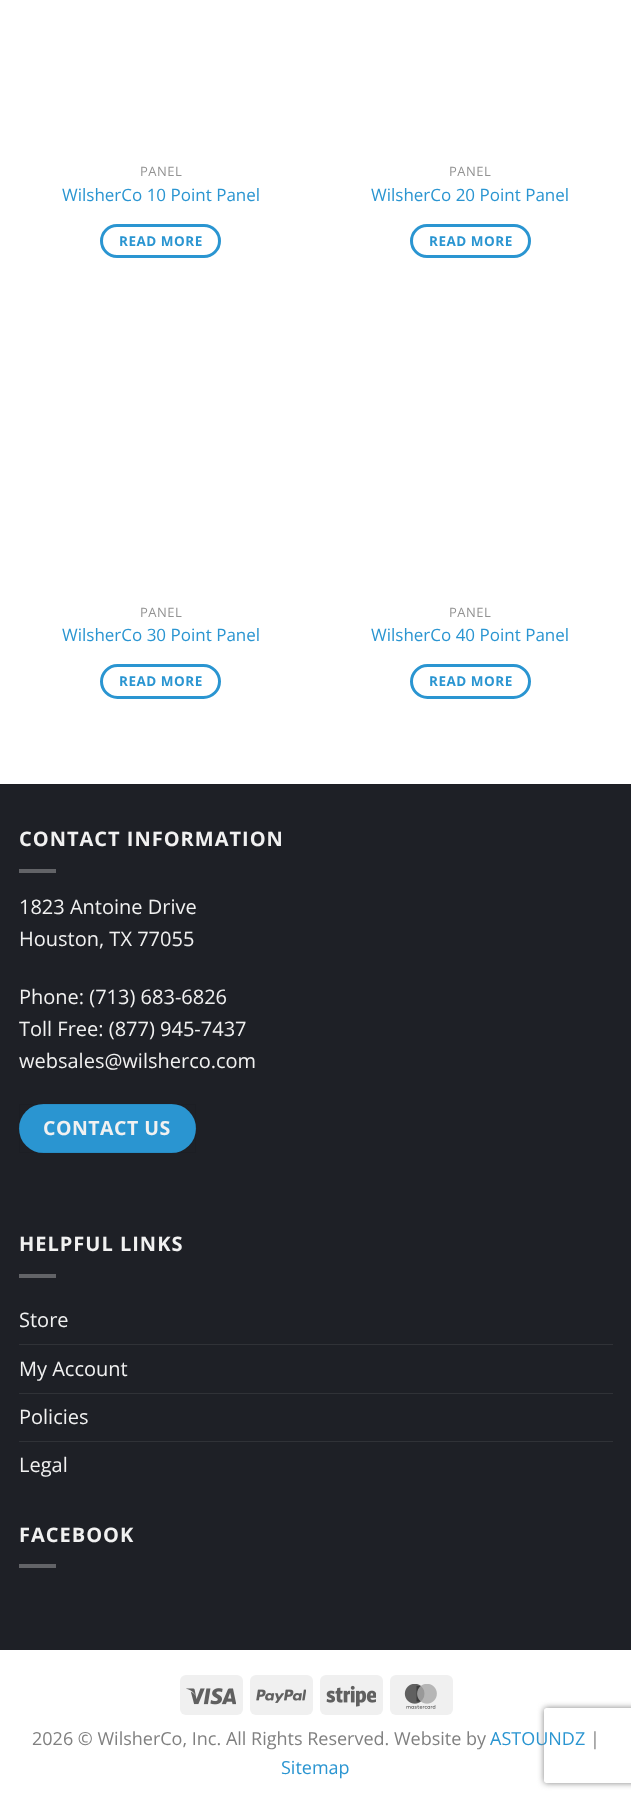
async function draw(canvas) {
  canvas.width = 631
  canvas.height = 1799
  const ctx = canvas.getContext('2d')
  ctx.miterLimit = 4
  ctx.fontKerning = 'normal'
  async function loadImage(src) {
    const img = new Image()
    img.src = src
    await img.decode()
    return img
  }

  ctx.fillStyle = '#fff'
  ctx.fillRect(0, 0, 631, 1799)
  ctx.letterSpacing = '0.5px'
  ctx.font = '13px Open Sans'
  ctx.fillStyle = '#929292'
  ctx.fillText('PANEL', 140, 176)
  ctx.letterSpacing = '0px'
  ctx.font = '17px Open Sans'
  ctx.fillStyle = '#2a95d1'
  ctx.fillText('WilsherCo 10 Point Panel', 62, 201)
  ctx.beginPath()
  ctx.roundRect(101.5, 225.5, 118, 31, 15.5)
  ctx.strokeStyle = '#2a95d1'
  ctx.lineWidth = 3
  ctx.stroke()
  ctx.letterSpacing = '0.5px'
  ctx.font = 'bold 13.5px Open Sans'
  ctx.fillText('READ MORE', 119, 246)
  ctx.font = '13px Open Sans'
  ctx.fillStyle = '#929292'
  ctx.fillText('PANEL', 449, 176)
  ctx.letterSpacing = '0px'
  ctx.font = '17px Open Sans'
  ctx.fillStyle = '#2a95d1'
  ctx.fillText('WilsherCo 20 Point Panel', 371, 201)
  ctx.beginPath()
  ctx.roundRect(411.5, 225.5, 118, 31, 15.5)
  ctx.stroke()
  ctx.letterSpacing = '0.5px'
  ctx.font = 'bold 13.5px Open Sans'
  ctx.fillText('READ MORE', 429, 246)
  ctx.font = '13px Open Sans'
  ctx.fillStyle = '#929292'
  ctx.fillText('PANEL', 140, 617)
  ctx.letterSpacing = '0px'
  ctx.font = '17px Open Sans'
  ctx.fillStyle = '#2a95d1'
  ctx.fillText('WilsherCo 30 Point Panel', 62, 641)
  ctx.beginPath()
  ctx.roundRect(101.5, 665.5, 118, 32, 16)
  ctx.stroke()
  ctx.letterSpacing = '0.5px'
  ctx.font = 'bold 13.5px Open Sans'
  ctx.fillText('READ MORE', 119, 686)
  ctx.font = '13px Open Sans'
  ctx.fillStyle = '#929292'
  ctx.fillText('PANEL', 449, 617)
  ctx.letterSpacing = '0px'
  ctx.font = '17px Open Sans'
  ctx.fillStyle = '#2a95d1'
  ctx.fillText('WilsherCo 40 Point Panel', 371, 641)
  ctx.beginPath()
  ctx.roundRect(411.5, 665.5, 118, 32, 16)
  ctx.stroke()
  ctx.letterSpacing = '0.5px'
  ctx.font = 'bold 13.5px Open Sans'
  ctx.fillText('READ MORE', 429, 686)
  ctx.fillStyle = '#1e2026'
  ctx.fillRect(0, 785, 631, 865)
  ctx.fillStyle = '#1d1e24'
  ctx.fillRect(0, 784, 631, 1)
  ctx.letterSpacing = '1px'
  ctx.font = 'bold 20px Open Sans'
  ctx.fillStyle = '#f1f1f1'
  ctx.fillText('CONTACT INFORMATION', 19, 846)
  ctx.fillStyle = '#626367'
  ctx.fillRect(19, 869, 37, 4)
  ctx.letterSpacing = '0px'
  ctx.font = '20px Open Sans'
  ctx.fillStyle = '#f1f1f1'
  ctx.fillText('1823 Antoine Drive', 19, 914)
  ctx.fillText('Houston, TX 77055', 19, 946)
  ctx.fillText('Phone: (713) 683-6826', 19, 1004)
  ctx.fillText('Toll Free: (877) 945-7437', 19, 1036)
  ctx.fillText('websales@wilsherco.com', 19, 1068)
  ctx.fillStyle = '#2a95d1'
  ctx.beginPath()
  ctx.roundRect(19, 1104, 177, 49, 24.5)
  ctx.fill()
  ctx.strokeStyle = '#0000000d'
  ctx.lineWidth = 1
  ctx.strokeRect(19.5, 1104.5, 176, 48)
  ctx.letterSpacing = '0.5px'
  ctx.font = 'bold 19.5px Open Sans'
  ctx.fillStyle = '#f1f1f1'
  ctx.fillText('CONTACT US', 43, 1135)
  ctx.letterSpacing = '1px'
  ctx.font = 'bold 20px Open Sans'
  ctx.fillText('HELPFUL LINKS', 19, 1251)
  ctx.fillStyle = '#626367'
  ctx.fillRect(19, 1274, 37, 4)
  ctx.letterSpacing = '0px'
  ctx.font = '20px Open Sans'
  ctx.fillStyle = '#f1f1f1'
  ctx.fillText('Store', 19, 1327)
  ctx.fillStyle = '#303237'
  ctx.fillRect(19, 1344, 594, 1)
  ctx.fillStyle = '#f1f1f1'
  ctx.fillText('My Account', 19, 1376)
  ctx.fillStyle = '#303237'
  ctx.fillRect(19, 1393, 594, 1)
  ctx.fillStyle = '#f1f1f1'
  ctx.fillText('Policies', 19, 1424)
  ctx.fillStyle = '#303237'
  ctx.fillRect(19, 1441, 594, 1)
  ctx.fillStyle = '#f1f1f1'
  ctx.fillText('Legal', 19, 1472)
  ctx.letterSpacing = '1px'
  ctx.font = 'bold 20px Open Sans'
  ctx.fillText('FACEBOOK', 19, 1542)
  ctx.fillStyle = '#626367'
  ctx.fillRect(19, 1564, 37, 4)
  ctx.fillStyle = '#f0f0f0'
  ctx.beginPath()
  ctx.roundRect(180, 1675, 63, 40, 6)
  ctx.fill()
  ctx.drawImage(await loadImage('image0.png'), 186, 1688, 50, 17)
  ctx.beginPath()
  ctx.roundRect(250, 1675, 63, 40, 6)
  ctx.fill()
  ctx.drawImage(await loadImage('image1.png'), 256, 1689, 50, 14)
  ctx.beginPath()
  ctx.roundRect(320, 1675, 63, 40, 6)
  ctx.fill()
  ctx.drawImage(await loadImage('image2.png'), 326, 1685, 50, 22)
  ctx.beginPath()
  ctx.roundRect(390, 1675, 63, 40, 6)
  ctx.fill()
  ctx.drawImage(await loadImage('image3.png'), 404, 1684, 33, 25)
  ctx.letterSpacing = '0px'
  ctx.font = '18px Open Sans'
  ctx.fillStyle = '#808080'
  ctx.fillText('2026 © WilsherCo, Inc. All Rights Reserved. Website by', 32, 1745)
  ctx.fillStyle = '#2a95d1'
  ctx.fillText('ASTOUNDZ', 490, 1745)
  ctx.fillStyle = '#808080'
  ctx.fillText('|', 590, 1745)
  ctx.fillStyle = '#2a95d1'
  ctx.fillText('Sitemap', 281, 1774)
  ctx.save()
  ctx.beginPath()
  ctx.moveTo(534, 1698)
  ctx.lineTo(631, 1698)
  ctx.lineTo(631, 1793)
  ctx.lineTo(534, 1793)
  ctx.closePath()
  ctx.moveTo(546.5, 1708)
  ctx.lineTo(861.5, 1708)
  ctx.bezierCurveTo(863, 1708, 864, 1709, 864, 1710.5)
  ctx.lineTo(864, 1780.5)
  ctx.bezierCurveTo(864, 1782, 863, 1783, 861.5, 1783)
  ctx.lineTo(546.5, 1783)
  ctx.bezierCurveTo(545, 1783, 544, 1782, 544, 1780.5)
  ctx.lineTo(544, 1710.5)
  ctx.bezierCurveTo(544, 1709, 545, 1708, 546.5, 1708)
  ctx.closePath()
  ctx.clip('evenodd')
  ctx.fillStyle = '#808080'
  ctx.filter = 'blur(3px)'
  ctx.beginPath()
  ctx.roundRect(544, 1708, 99, 75, 2.5)
  ctx.fill()
  ctx.filter = 'none'
  ctx.restore()
}

draw(document.querySelector('canvas'))
